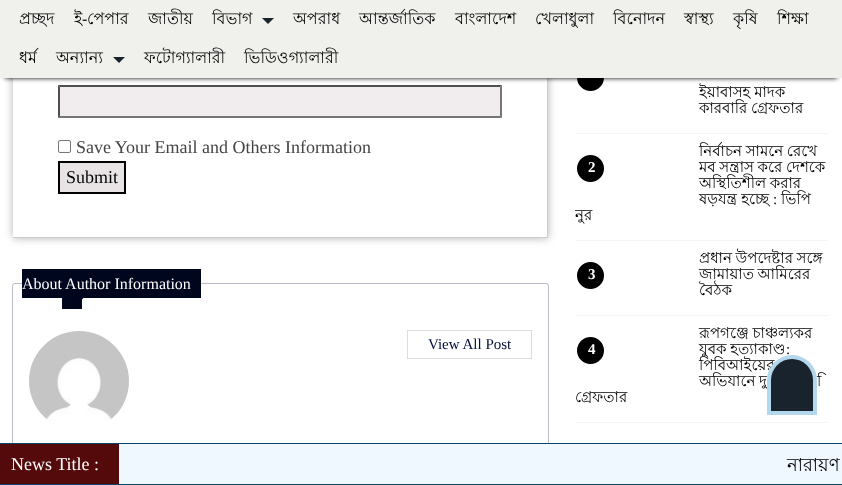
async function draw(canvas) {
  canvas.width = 842
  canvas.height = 485
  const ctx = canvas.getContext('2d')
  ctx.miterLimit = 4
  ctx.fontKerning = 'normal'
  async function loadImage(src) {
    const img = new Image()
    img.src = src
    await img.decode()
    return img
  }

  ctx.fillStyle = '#fff'
  ctx.fillRect(0, 0, 842, 485)
  ctx.save()
  ctx.beginPath()
  ctx.moveTo(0, 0)
  ctx.lineTo(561, 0)
  ctx.lineTo(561, 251)
  ctx.lineTo(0, 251)
  ctx.closePath()
  ctx.moveTo(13, -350)
  ctx.lineTo(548, -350)
  ctx.lineTo(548, 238)
  ctx.lineTo(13, 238)
  ctx.closePath()
  ctx.clip('evenodd')
  ctx.fillStyle = '#0000004d'
  ctx.filter = 'blur(4px)'
  ctx.beginPath()
  ctx.rect(13, -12, 535, 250)
  ctx.fill()
  ctx.filter = 'none'
  ctx.restore()
  ctx.fillStyle = '#ccc'
  ctx.fillRect(547, 78, 1, 160)
  ctx.fillStyle = '#f1edee'
  ctx.fillRect(58, 85, 444, 33)
  ctx.fillStyle = '#4f4f4f'
  ctx.beginPath()
  ctx.moveTo(58, 85)
  ctx.lineTo(502, 85)
  ctx.lineTo(500, 87)
  ctx.lineTo(60, 87)
  ctx.closePath()
  ctx.fill()
  ctx.fillStyle = '#767676'
  ctx.beginPath()
  ctx.moveTo(502, 85)
  ctx.lineTo(502, 118)
  ctx.lineTo(500, 116)
  ctx.lineTo(500, 87)
  ctx.closePath()
  ctx.fill()
  ctx.beginPath()
  ctx.moveTo(502, 118)
  ctx.lineTo(58, 118)
  ctx.lineTo(60, 116)
  ctx.lineTo(500, 116)
  ctx.closePath()
  ctx.fill()
  ctx.fillStyle = '#4f4f4f'
  ctx.beginPath()
  ctx.moveTo(58, 118)
  ctx.lineTo(58, 85)
  ctx.lineTo(60, 87)
  ctx.lineTo(60, 116)
  ctx.closePath()
  ctx.fill()
  ctx.save()
  ctx.beginPath()
  ctx.rect(575, 51, 253, 82)
  ctx.clip()
  ctx.fillStyle = '#000'
  ctx.beginPath()
  ctx.arc(590.5, 77.5, 15.5, 0, 2 * Math.PI)
  ctx.fill()
  ctx.strokeStyle = '#fff'
  ctx.lineWidth = 4
  ctx.stroke()
  ctx.restore()
  ctx.fillStyle = '#000'
  ctx.filter = 'blur(2.5px)'
  ctx.beginPath()
  ctx.rect(5, 10, 832, 68)
  ctx.fill()
  ctx.filter = 'none'
  ctx.fillStyle = '#f0f0ed'
  ctx.fillRect(0, 0, 842, 78)
  ctx.font = '16px Lohit Bengali'
  ctx.fillStyle = '#000'
  ctx.fillText('প্রচ্ছদ', 19, 24)
  ctx.fillText('ই', 74, 24)
  ctx.font = '16px Liberation Serif'
  ctx.fillText('-', 82, 24)
  ctx.font = '16px Lohit Bengali'
  ctx.fillText('পেপার', 87, 24)
  ctx.fillText('জাতীয়', 148, 24)
  ctx.fillText('বিভাগ', 212, 24)
  ctx.fillStyle = '#19232d'
  ctx.beginPath()
  ctx.moveTo(262, 18)
  ctx.lineTo(274, 18)
  ctx.lineTo(268, 24)
  ctx.closePath()
  ctx.fill()
  ctx.fillStyle = '#000'
  ctx.fillText('অপরাধ', 293, 24)
  ctx.fillText('আন্তর্জাতিক', 359, 24)
  ctx.fillText('বাংলাদেশ', 455, 24)
  ctx.fillText('খেলাধুলা', 535, 24)
  ctx.fillText('বিনোদন', 613, 24)
  ctx.fillText('স্বাস্থ্য', 684, 24)
  ctx.fillText('কৃষি', 733, 24)
  ctx.fillText('শিক্ষা', 777, 24)
  ctx.fillText('ধর্ম', 19, 63)
  ctx.fillText('অন্যান্য', 56, 63)
  ctx.fillStyle = '#19232d'
  ctx.beginPath()
  ctx.moveTo(113, 57)
  ctx.lineTo(125, 57)
  ctx.lineTo(119, 63)
  ctx.closePath()
  ctx.fill()
  ctx.fillStyle = '#000'
  ctx.fillText('ফটোগ্যালারী', 144, 63)
  ctx.fillText('ভিডিওগ্যালারী', 244, 63)
  ctx.fillStyle = '#ccc'
  ctx.fillRect(13, 237, 535, 1)
  ctx.beginPath()
  ctx.roundRect(58.5, 140.5, 12, 12, 1.5)
  ctx.strokeStyle = '#767676'
  ctx.stroke()
  ctx.font = '18px Liberation Serif'
  ctx.fillStyle = '#444'
  ctx.fillText('Save Your Email and Others Information', 76, 153)
  ctx.fillStyle = '#e8e4e5'
  ctx.beginPath()
  ctx.rect(59, 162, 66, 31)
  ctx.fill()
  ctx.strokeStyle = '#000'
  ctx.lineWidth = 2
  ctx.stroke()
  ctx.fillStyle = '#000'
  ctx.fillText('Submit', 66, 183)
  ctx.beginPath()
  ctx.roundRect(12.5, 283.5, 536, 168, 2.5)
  ctx.strokeStyle = '#b9bcc6'
  ctx.lineWidth = 1
  ctx.stroke()
  ctx.fillStyle = '#00061e'
  ctx.fillRect(62, 298, 20, 11)
  ctx.fillRect(22, 269, 179, 29)
  ctx.font = '16px Liberation Serif'
  ctx.fillStyle = '#fff'
  ctx.fillText('About Author Information', 22, 289)
  ctx.fillStyle = '#00061e'
  ctx.beginPath()
  ctx.moveTo(77, 290.5)
  ctx.lineTo(84, 297.5)
  ctx.lineTo(77, 304.5)
  ctx.lineTo(70, 297.5)
  ctx.closePath()
  ctx.fill()
  ctx.drawImage(await loadImage('image0.png'), 29, 331, 100, 90)
  ctx.strokeStyle = '#ddd'
  ctx.strokeRect(407.5, 330.5, 124, 28)
  ctx.font = '15px Liberation Serif'
  ctx.fillStyle = '#030e3c'
  ctx.fillText('View All Post', 428, 349)
  ctx.fillStyle = '#f4f4f4'
  ctx.fillRect(575, 133, 253, 1)
  ctx.wordSpacing = '-0.5px'
  ctx.font = '15px Lohit Bengali'
  ctx.fillStyle = '#000'
  ctx.fillText('ইয়াবাসহ মাদক', 699, 97)
  ctx.fillText('কারবারি গ্রেফতার', 699, 113)
  ctx.fillStyle = '#f4f4f4'
  ctx.fillRect(575, 240, 253, 1)
  ctx.fillStyle = '#000'
  ctx.fillText('নির্বাচন সামনে রেখে', 699, 156)
  ctx.fillText('মব সন্ত্রাস করে দেশকে', 699, 172)
  ctx.fillText('অস্থিতিশীল করার', 699, 188)
  ctx.wordSpacing = '0px'
  ctx.fillText('ষড়যন্ত্র হচ্ছে', 699, 204)
  ctx.font = '15px Liberation Serif'
  ctx.fillText(':', 773, 204)
  ctx.font = '15px Lohit Bengali'
  ctx.fillText('ভিপি', 781, 204)
  ctx.save()
  ctx.beginPath()
  ctx.rect(575, 142, 253, 98)
  ctx.clip()
  ctx.fillText('নুর', 575, 220)
  ctx.beginPath()
  ctx.arc(590.5, 168.5, 15.5, 0, 2 * Math.PI)
  ctx.fill()
  ctx.strokeStyle = '#fff'
  ctx.lineWidth = 4
  ctx.stroke()
  ctx.restore()
  ctx.font = 'bold 15px Liberation Serif'
  ctx.fillStyle = '#fff'
  ctx.fillText('2', 588, 172)
  ctx.fillStyle = '#f4f4f4'
  ctx.fillRect(575, 315, 253, 1)
  ctx.save()
  ctx.beginPath()
  ctx.rect(575, 249, 253, 66)
  ctx.clip()
  ctx.fillStyle = '#000'
  ctx.beginPath()
  ctx.arc(590.5, 275.5, 15.5, 0, 2 * Math.PI)
  ctx.fill()
  ctx.strokeStyle = '#fff'
  ctx.lineWidth = 4
  ctx.stroke()
  ctx.restore()
  ctx.fillStyle = '#fff'
  ctx.fillText('3', 588, 279)
  ctx.wordSpacing = '-0.5px'
  ctx.font = '15px Lohit Bengali'
  ctx.fillStyle = '#000'
  ctx.fillText('প্রধান উপদেষ্টার সঙ্গে', 699, 263)
  ctx.fillText('জামায়াত আমিরের', 699, 279)
  ctx.wordSpacing = '0px'
  ctx.fillText('বৈঠক', 699, 295)
  ctx.fillStyle = '#f4f4f4'
  ctx.fillRect(575, 422, 253, 1)
  ctx.wordSpacing = '-0.5px'
  ctx.fillStyle = '#000'
  ctx.fillText('রূপগঞ্জে চাঞ্চল্যকর', 699, 338)
  ctx.fillText('যুবক হত্যাকাণ্ড', 699, 354)
  ctx.wordSpacing = '0px'
  ctx.font = '15px Liberation Serif'
  ctx.fillText(':', 786, 354)
  ctx.font = '15px Lohit Bengali'
  ctx.fillText('পিবিআইয়ের', 699, 370)
  ctx.wordSpacing = '-0.5px'
  ctx.fillText('অভিযানে দু', 699, 386)
  ctx.save()
  ctx.beginPath()
  ctx.rect(575, 324, 253, 98)
  ctx.clip()
  ctx.fillText('ি', 817, 386)
  ctx.restore()
  ctx.wordSpacing = '0px'
  ctx.fillText('গ্রেফতার', 575, 402)
  ctx.save()
  ctx.beginPath()
  ctx.rect(575, 324, 253, 98)
  ctx.clip()
  ctx.beginPath()
  ctx.arc(590.5, 350.5, 15.5, 0, 2 * Math.PI)
  ctx.fill()
  ctx.strokeStyle = '#fff'
  ctx.lineWidth = 4
  ctx.stroke()
  ctx.restore()
  ctx.font = 'bold 15px Liberation Serif'
  ctx.fillStyle = '#fff'
  ctx.fillText('4', 588, 354)
  ctx.fillStyle = '#b3d7ec'
  ctx.beginPath()
  ctx.roundRect(767, 355, 50, 60, [25, 25, 0, 0])
  ctx.fill()
  ctx.fillStyle = '#19232d'
  ctx.beginPath()
  ctx.roundRect(771, 359, 42, 52, [21, 21, 0, 0])
  ctx.fill()
  ctx.fillStyle = '#f0f8ff'
  ctx.fillRect(119, 444, 723, 40)
  ctx.fillStyle = '#0a4466'
  ctx.fillRect(0, 443, 842, 1)
  ctx.fillRect(0, 484, 842, 1)
  ctx.fillStyle = '#540a0a'
  ctx.fillRect(0, 444, 119, 40)
  ctx.font = '18px Liberation Serif'
  ctx.fillStyle = '#fff'
  ctx.fillText('News Title :', 11, 470)
  ctx.font = '18px Lohit Bengali'
  ctx.fillStyle = '#000'
  ctx.fillText('নারায়ণ', 787, 471)
}

draw(document.querySelector('canvas'))
